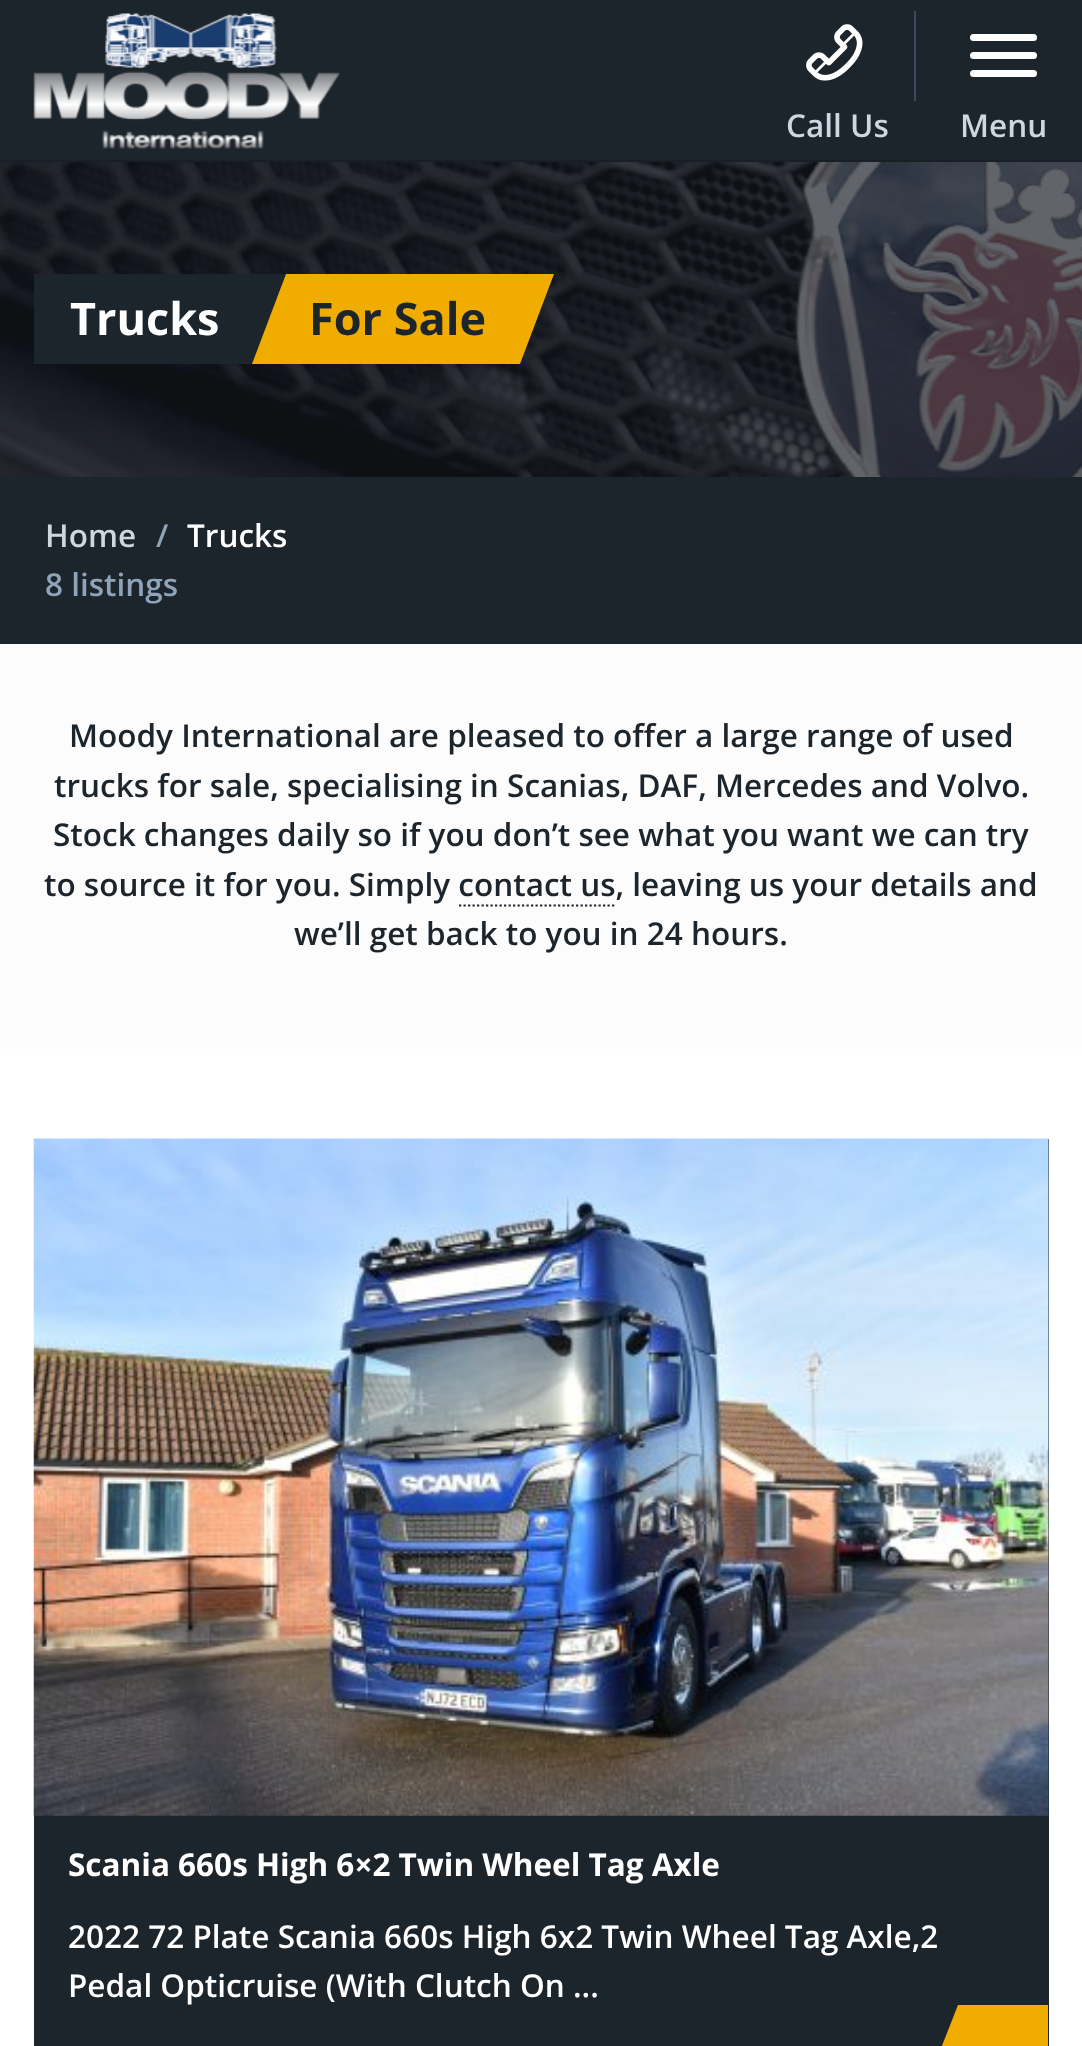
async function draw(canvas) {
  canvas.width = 1082
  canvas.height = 2046
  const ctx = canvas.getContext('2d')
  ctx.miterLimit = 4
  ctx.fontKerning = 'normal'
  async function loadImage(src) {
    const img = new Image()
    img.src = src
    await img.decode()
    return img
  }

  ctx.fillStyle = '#1c242c'
  ctx.fillRect(0, 0, 1082, 2046)
  ctx.fillStyle = '#181f26'
  ctx.fillRect(0, 160, 1082, 2)
  ctx.drawImage(await loadImage('image0.png'), 33, 13, 307, 136)
  ctx.fillStyle = '#3a4a5b'
  ctx.fillRect(914, 11, 2, 90)
  ctx.drawImage(await loadImage('image1.png'), 806, 24, 57, 57)
  ctx.font = '600 31.5px Open Sans'
  ctx.fillStyle = '#ced7e0'
  ctx.fillText('Call Us', 786, 137)
  ctx.fillStyle = '#fff'
  ctx.beginPath()
  ctx.roundRect(970, 52, 67, 7, 3.5)
  ctx.fill()
  ctx.beginPath()
  ctx.roundRect(970, 34, 67, 7, 3.5)
  ctx.fill()
  ctx.beginPath()
  ctx.roundRect(970, 70, 67, 7, 3.5)
  ctx.fill()
  ctx.fillStyle = '#ced7e0'
  ctx.fillText('Menu', 960, 137)
  ctx.drawImage(await loadImage('image2.png'), 0, 162, 1082, 315)
  ctx.fillStyle = '#f0ad00'
  ctx.beginPath()
  ctx.moveTo(241, 274)
  ctx.lineTo(554, 274)
  ctx.lineTo(520, 364)
  ctx.lineTo(241, 364)
  ctx.closePath()
  ctx.fill()
  ctx.fillStyle = '#1c242c'
  ctx.beginPath()
  ctx.moveTo(34, 274)
  ctx.lineTo(286, 274)
  ctx.lineTo(252, 364)
  ctx.lineTo(34, 364)
  ctx.closePath()
  ctx.fill()
  ctx.font = 'bold 45px Open Sans'
  ctx.fillStyle = '#fff'
  ctx.fillText('Trucks', 70, 335)
  ctx.fillStyle = '#1c242c'
  ctx.fillText('For Sale', 309, 335)
  ctx.font = '600 31.5px Open Sans'
  ctx.fillStyle = '#ced7e0'
  ctx.fillText('Home', 45, 547)
  ctx.fillStyle = '#8fa4b8'
  ctx.fillText('/', 156, 547)
  ctx.fillStyle = '#fff'
  ctx.fillText('Trucks', 187, 547)
  ctx.fillStyle = '#8fa4b8'
  ctx.fillText('8 listings', 45, 596)
  ctx.fillStyle = '#fcfcfc'
  ctx.fillRect(0, 644, 1082, 405)
  ctx.fillStyle = '#1c242c'
  ctx.fillText('Moody International are pleased to offer a large range of used', 69, 747)
  ctx.fillText('trucks for sale, specialising in Scanias, DAF, Mercedes and Volvo.', 54, 797)
  ctx.fillText('Stock changes daily so if you don’t see what you want we can try', 53, 846)
  ctx.fillText('to source it for you. Simply contact us, leaving us your details and', 44, 896)
  ctx.beginPath()
  ctx.moveTo(459, 905.5)
  ctx.lineTo(616.5, 905.5)
  ctx.strokeStyle = '#1c242c'
  ctx.lineWidth = 2.2
  ctx.setLineDash([2.25, 2.25])
  ctx.stroke()
  ctx.fillText('we’ll get back to you in 24 hours.', 294, 945)
  ctx.fillStyle = '#fff'
  ctx.fillRect(0, 1049, 1082, 997)
  ctx.fillStyle = '#1c242c'
  ctx.fillRect(34, 1139, 1015, 907)
  ctx.drawImage(await loadImage('image3.png'), 33, 1138, 1016, 678)
  ctx.font = 'bold 31.5px Open Sans'
  ctx.fillStyle = '#fff'
  ctx.fillText('Scania 660s High 6×2 Twin Wheel Tag Axle', 68, 1876)
  ctx.font = '600 31.5px Open Sans'
  ctx.fillText('2022 72 Plate Scania 660s High 6x2 Twin Wheel Tag Axle,2', 68, 1948)
  ctx.fillText('Pedal Opticruise (With Clutch On ...', 68, 1997)
  ctx.fillStyle = '#f0ad00'
  ctx.beginPath()
  ctx.moveTo(1048, 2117)
  ctx.lineTo(914, 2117)
  ctx.lineTo(958, 2005)
  ctx.lineTo(1048, 2005)
  ctx.closePath()
  ctx.fill()
}

draw(document.querySelector('canvas'))
